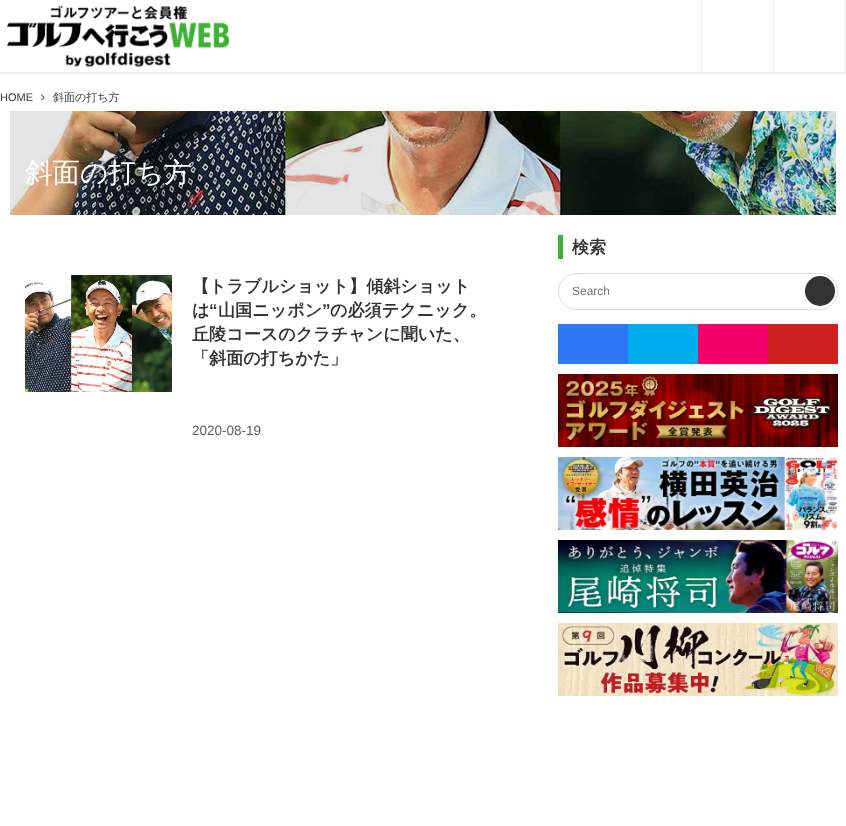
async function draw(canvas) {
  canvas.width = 846
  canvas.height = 826
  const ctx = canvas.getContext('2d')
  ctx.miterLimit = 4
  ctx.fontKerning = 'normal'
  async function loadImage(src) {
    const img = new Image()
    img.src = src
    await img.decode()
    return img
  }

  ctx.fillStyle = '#fff'
  ctx.fillRect(0, 0, 846, 826)
  ctx.drawImage(await loadImage('image0.png'), 7, 5, 223, 63)
  ctx.fillStyle = '#eee'
  ctx.fillRect(845, 0, 1, 72)
  ctx.fillRect(701, 0, 1, 72)
  ctx.fillRect(773, 0, 1, 72)
  ctx.fillRect(0, 72, 846, 2)
  ctx.font = '11px Liberation Sans'
  ctx.fillStyle = '#333'
  ctx.fillText('HOME', 0, 101)
  ctx.drawImage(await loadImage('image1.png'), 41, 94, 4, 7)
  ctx.font = '500 11px WenQuanYi Zen Hei'
  ctx.fillText('斜面の打ち方', 53, 101)
  ctx.drawImage(await loadImage('image2.png'), 10, 111, 826, 104)
  ctx.font = '500 27.5px WenQuanYi Zen Hei'
  ctx.fillStyle = '#fff'
  ctx.fillText('斜面の打ち方', 25, 182)
  ctx.fillStyle = '#3eb234'
  ctx.fillRect(558, 235, 5, 24)
  ctx.font = 'bold 17px WenQuanYi Zen Hei'
  ctx.fillStyle = '#333'
  ctx.fillText('検索', 572, 253)
  ctx.beginPath()
  ctx.roundRect(558.5, 273.5, 279, 36, 18)
  ctx.strokeStyle = '#ddd'
  ctx.stroke()
  ctx.font = '12px Liberation Sans'
  ctx.fillStyle = '#757575'
  ctx.fillText('Search', 572, 295)
  ctx.fillStyle = '#333'
  ctx.beginPath()
  ctx.arc(820, 291, 15, 0, 2 * Math.PI)
  ctx.fill()
  ctx.fillStyle = '#2e77f2'
  ctx.fillRect(558, 324, 70, 40)
  ctx.fillStyle = '#00acec'
  ctx.fillRect(628, 324, 70, 40)
  ctx.fillStyle = '#f5006a'
  ctx.fillRect(698, 324, 70, 40)
  ctx.fillStyle = '#ce201f'
  ctx.fillRect(768, 324, 70, 40)
  ctx.drawImage(await loadImage('image3.png'), 558, 374, 280, 73)
  ctx.drawImage(await loadImage('image4.png'), 558, 457, 280, 73)
  ctx.drawImage(await loadImage('image5.png'), 558, 540, 280, 73)
  ctx.drawImage(await loadImage('image6.png'), 558, 623, 280, 73)
  ctx.drawImage(await loadImage('image7.png'), 25, 275, 147, 117)
  ctx.font = 'bold 17.1px WenQuanYi Zen Hei'
  ctx.fillStyle = '#333'
  ctx.fillText('【トラブルショット】傾斜ショット', 192, 292)
  ctx.fillText('は', 192, 316)
  ctx.font = 'bold 17.1px Liberation Sans'
  ctx.fillText('“', 209, 316)
  ctx.font = 'bold 17.1px WenQuanYi Zen Hei'
  ctx.fillText('山国ニッポン', 218, 316)
  ctx.font = 'bold 17.1px Liberation Sans'
  ctx.fillText('”', 322, 316)
  ctx.font = 'bold 17.1px WenQuanYi Zen Hei'
  ctx.fillText('の必須テクニック。', 330, 316)
  ctx.fillText('丘陵コースのクラチャンに聞いた、', 192, 340)
  ctx.fillText('「斜面の打ちかた」', 192, 364)
  ctx.font = '13.5px Liberation Sans'
  ctx.fillStyle = '#5c5c5c'
  ctx.fillText('2020-08-19', 192, 435)
}

draw(document.querySelector('canvas'))
